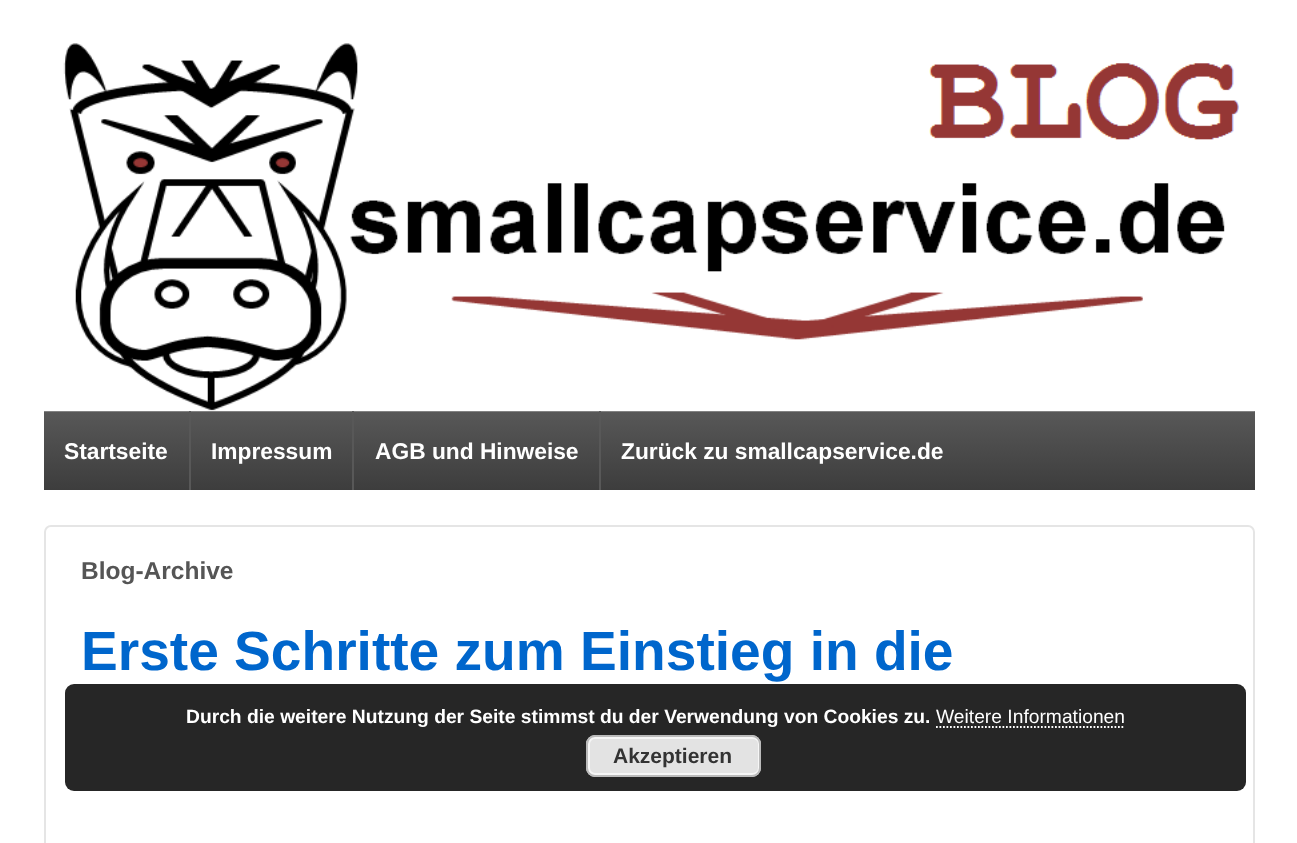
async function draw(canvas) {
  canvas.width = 1297
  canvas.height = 843
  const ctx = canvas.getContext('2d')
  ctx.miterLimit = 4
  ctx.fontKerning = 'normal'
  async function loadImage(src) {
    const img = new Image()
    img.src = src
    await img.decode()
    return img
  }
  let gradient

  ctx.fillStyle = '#fff'
  ctx.fillRect(0, 0, 1297, 843)
  gradient = ctx.createLinearGradient(649, 411, 649, 490)
  gradient.addColorStop(0, '#585858')
  gradient.addColorStop(1, '#3d3d3d')
  ctx.fillStyle = gradient
  ctx.fillRect(44, 411, 1211, 79)
  ctx.drawImage(await loadImage('image0.png'), 44, 43, 1211, 369)
  ctx.font = 'bold 22.75px Liberation Sans'
  ctx.fillStyle = '#fff'
  ctx.fillText('Startseite', 64, 459)
  ctx.fillStyle = '#585858'
  ctx.fillRect(189, 411, 2, 79)
  ctx.fillStyle = '#fff'
  ctx.fillText('Impressum', 211, 459)
  ctx.fillStyle = '#585858'
  ctx.fillRect(352, 411, 2, 79)
  ctx.fillStyle = '#fff'
  ctx.fillText('AGB und Hinweise', 375, 459)
  ctx.fillStyle = '#585858'
  ctx.fillRect(599, 411, 2, 79)
  ctx.fillStyle = '#fff'
  ctx.fillText('Zurück zu smallcapservice.de', 621, 459)
  ctx.beginPath()
  ctx.roundRect(45, 526, 1209, 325, 6)
  ctx.strokeStyle = '#e5e5e5'
  ctx.lineWidth = 2
  ctx.stroke()
  ctx.font = 'bold 24.5px Liberation Sans'
  ctx.fillStyle = '#555'
  ctx.fillText('Blog-Archive', 81, 579)
  ctx.font = 'bold 55.1px Liberation Sans'
  ctx.fillStyle = '#06c'
  ctx.fillText('Erste Schritte zum Einstieg in die', 81, 670)
  ctx.fillStyle = '#000000d9'
  ctx.beginPath()
  ctx.roundRect(65, 684, 1181, 107, 9)
  ctx.fill()
  ctx.font = 'bold 19.25px Liberation Sans'
  ctx.fillStyle = '#fff'
  ctx.fillText('Durch die weitere Nutzung der Seite stimmst du der Verwendung von Cookies zu.', 186, 723)
  ctx.font = '19.25px Liberation Sans'
  ctx.fillText('Weitere Informationen', 936, 723)
  ctx.beginPath()
  ctx.moveTo(936, 727)
  ctx.lineTo(1125, 727)
  ctx.strokeStyle = '#fff'
  ctx.lineWidth = 1.8
  ctx.setLineDash([1.75, 1.75])
  ctx.stroke()
  ctx.fillStyle = '#e3e3e3'
  ctx.beginPath()
  ctx.roundRect(586, 735, 175, 42, 9)
  ctx.fill()
  ctx.beginPath()
  ctx.roundRect(589, 738, 170, 36, 6)
  ctx.strokeStyle = '#f6f6f6'
  ctx.lineWidth = 2
  ctx.setLineDash([])
  ctx.stroke()
  ctx.beginPath()
  ctx.roundRect(587, 736, 173, 40, 8)
  ctx.strokeStyle = '#bbb'
  ctx.stroke()
  ctx.font = 'bold 21px Liberation Sans'
  ctx.fillStyle = '#333'
  ctx.fillText('Akzeptieren', 613, 763)
}

draw(document.querySelector('canvas'))
